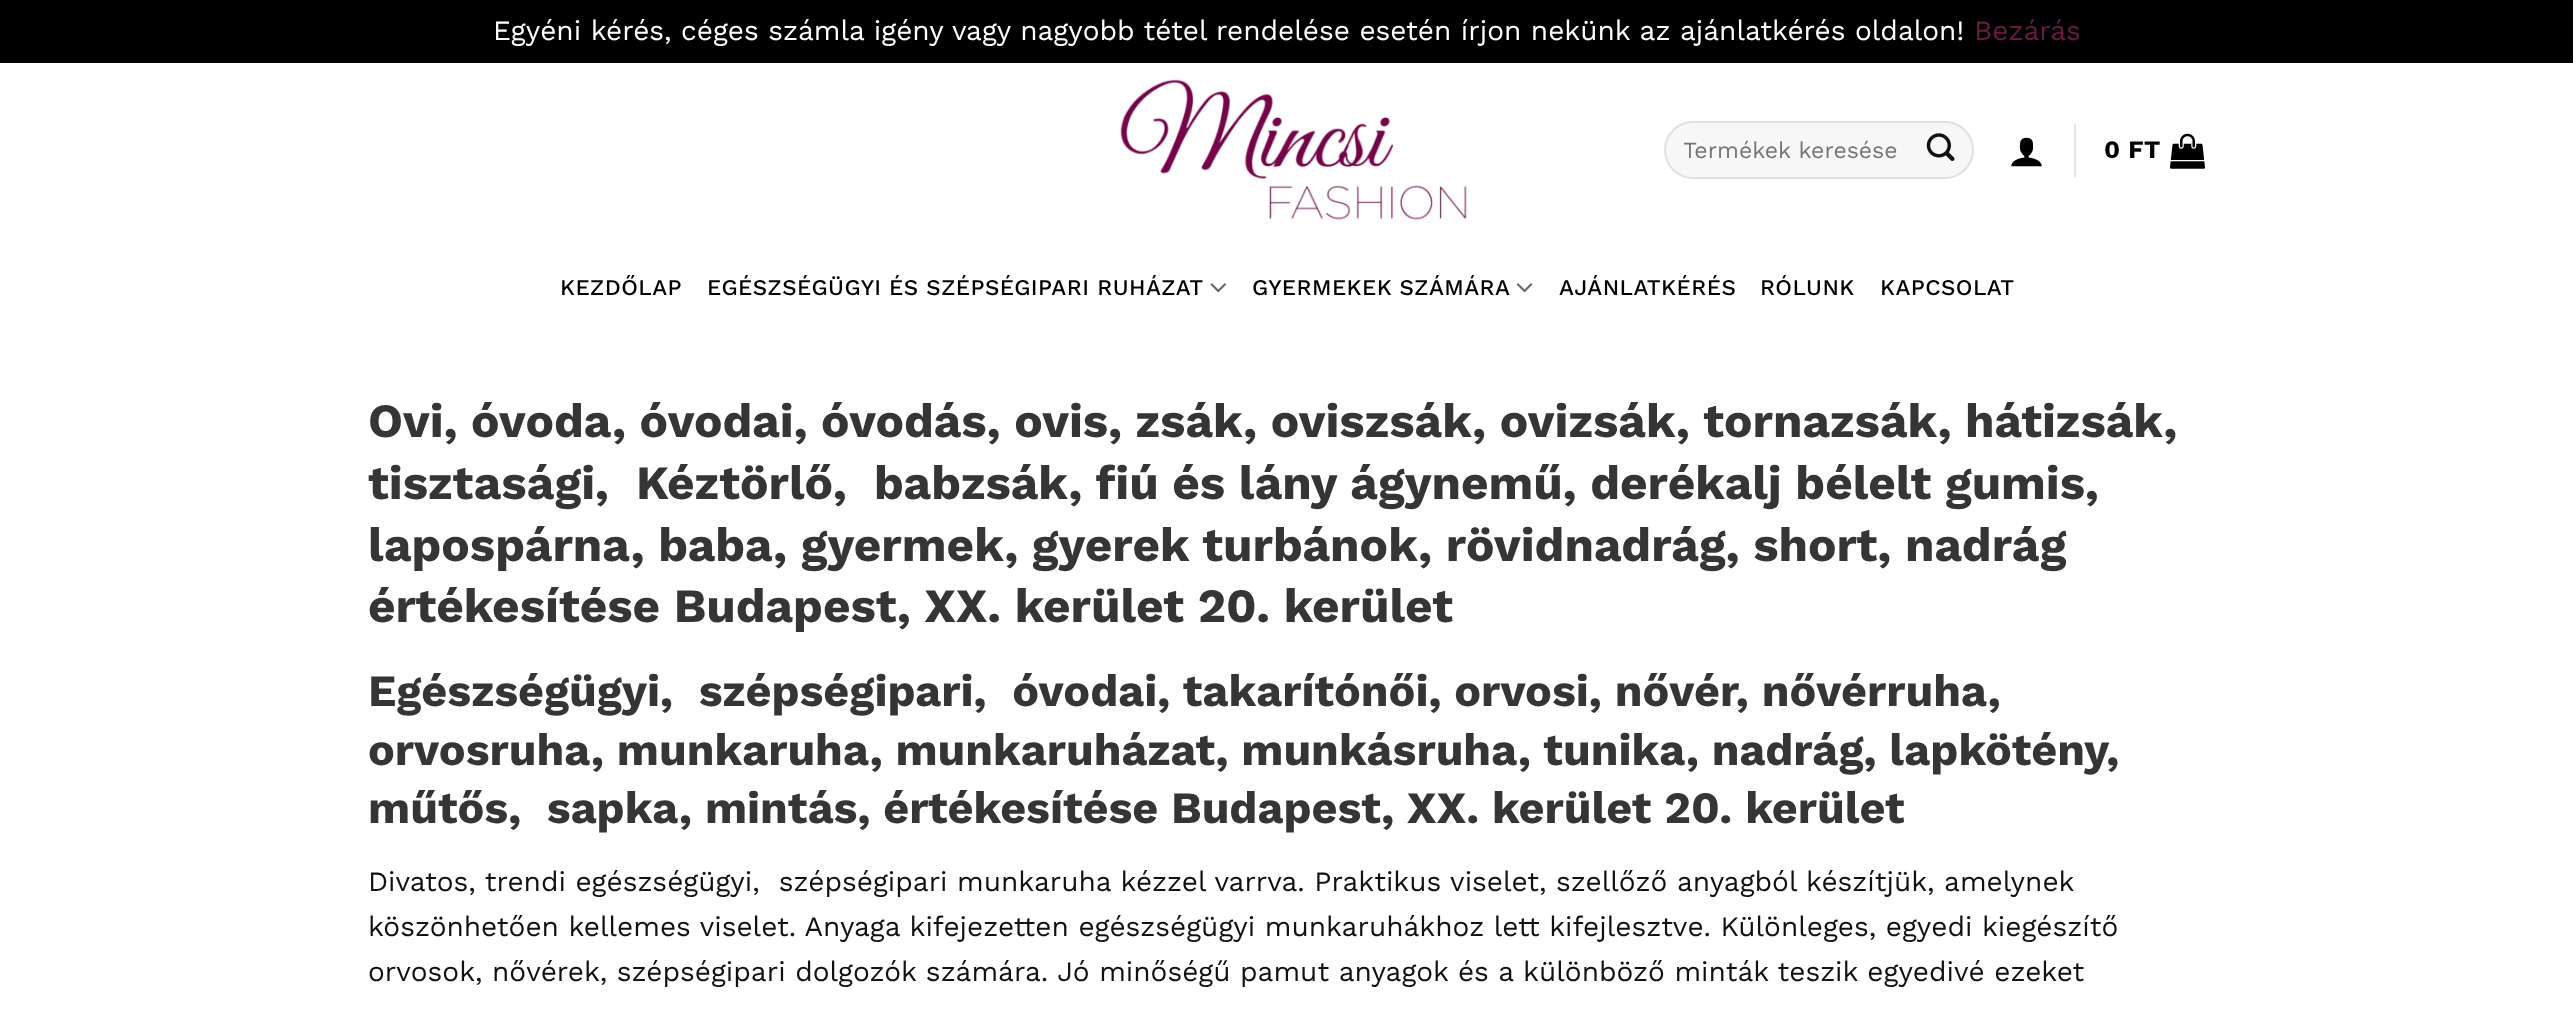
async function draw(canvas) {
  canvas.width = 2573
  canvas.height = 1016
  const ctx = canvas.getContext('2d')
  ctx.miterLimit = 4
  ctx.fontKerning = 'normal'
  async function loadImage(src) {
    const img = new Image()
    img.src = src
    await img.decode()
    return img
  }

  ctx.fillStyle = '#000'
  ctx.fillRect(0, 0, 2573, 1016)
  ctx.font = '28px Work Sans'
  ctx.fillStyle = '#fff'
  ctx.fillText('Egyéni kérés, céges számla igény vagy nagyobb tétel rendelése esetén írjon nekünk az ajánlatkérés oldalon!', 493, 40)
  ctx.fillStyle = '#6a1a41'
  ctx.fillText('Bezárás', 1974, 40)
  ctx.fillStyle = '#fff'
  ctx.fillRect(0, 63, 2573, 953)
  ctx.drawImage(await loadImage('image0.png'), 1119, 78, 349, 145)
  ctx.fillStyle = '#f7f7f7'
  ctx.beginPath()
  ctx.roundRect(1664, 121, 310, 58, 29)
  ctx.fill()
  ctx.beginPath()
  ctx.roundRect(1665, 122, 308, 56, 28)
  ctx.strokeStyle = '#00000017'
  ctx.lineWidth = 2
  ctx.stroke()
  ctx.save()
  ctx.beginPath()
  ctx.rect(1684, 137, 264, 26)
  ctx.clip()
  ctx.font = '23px Work Sans'
  ctx.fillStyle = '#757575'
  ctx.fillText('Termékek keresése', 1683, 158)
  ctx.restore()
  ctx.drawImage(await loadImage('image1.png'), 1926, 133, 29, 28)
  ctx.drawImage(await loadImage('image2.png'), 2011, 137, 31, 30)
  ctx.fillStyle = '#e6e6e6'
  ctx.fillRect(2074, 124, 2, 53)
  ctx.letterSpacing = '0.5px'
  ctx.font = 'bold 25px Work Sans'
  ctx.fillStyle = '#000'
  ctx.fillText('0 FT', 2104, 158)
  ctx.drawImage(await loadImage('image3.png'), 2170, 133, 35, 36)
  ctx.letterSpacing = '0.45px'
  ctx.font = '500 22.4px Work Sans'
  ctx.fillText('KEZDŐLAP', 560, 295)
  ctx.fillText('EGÉSZSÉGÜGYI ÉS SZÉPSÉGIPARI RUHÁZAT', 707, 295)
  ctx.drawImage(await loadImage('image4.png'), 1210, 283, 16, 10)
  ctx.fillText('GYERMEKEK SZÁMÁRA', 1252, 295)
  ctx.drawImage(await loadImage('image5.png'), 1516, 283, 17, 10)
  ctx.fillText('AJÁNLATKÉRÉS', 1559, 295)
  ctx.fillText('RÓLUNK', 1760, 295)
  ctx.fillText('KAPCSOLAT', 1880, 295)
  ctx.letterSpacing = '0px'
  ctx.font = 'bold 47.6px Work Sans'
  ctx.fillStyle = '#353535'
  ctx.fillText('Ovi, óvoda, óvodai, óvodás, ovis, zsák, oviszsák, ovizsák, tornazsák, hátizsák,', 368, 437)
  ctx.fillText('tisztasági,  Kéztörlő,  babzsák, fiú és lány ágynemű, derékalj bélelt gumis,', 368, 499)
  ctx.fillText('lapospárna, baba, gyermek, gyerek turbánok, rövidnadrág, short, nadrág', 368, 561)
  ctx.fillText('értékesítése Budapest, XX. kerület 20. kerület', 368, 622)
  ctx.font = 'bold 44.8px Work Sans'
  ctx.fillText('Egészségügyi,  szépségipari,  óvodai, takarítónői, orvosi, nővér, nővérruha,', 368, 706)
  ctx.fillText('orvosruha, munkaruha, munkaruházat, munkásruha, tunika, nadrág, lapkötény,', 368, 765)
  ctx.fillText('műtős,  sapka, mintás, értékesítése Budapest, XX. kerület 20. kerület', 368, 823)
  ctx.font = '28px Work Sans'
  ctx.fillStyle = '#111'
  ctx.fillText('Divatos, trendi egészségügyi,  szépségipari munkaruha kézzel varrva. Praktikus viselet, szellőző anyagból készítjük, amelynek', 368, 891)
  ctx.fillText('köszönhetően kellemes viselet. Anyaga kifejezetten egészségügyi munkaruhákhoz lett kifejlesztve. Különleges, egyedi kiegészítő', 368, 936)
  ctx.fillText('orvosok, nővérek, szépségipari dolgozók számára. Jó minőségű pamut anyagok és a különböző minták teszik egyedivé ezeket', 368, 981)
}

draw(document.querySelector('canvas'))
